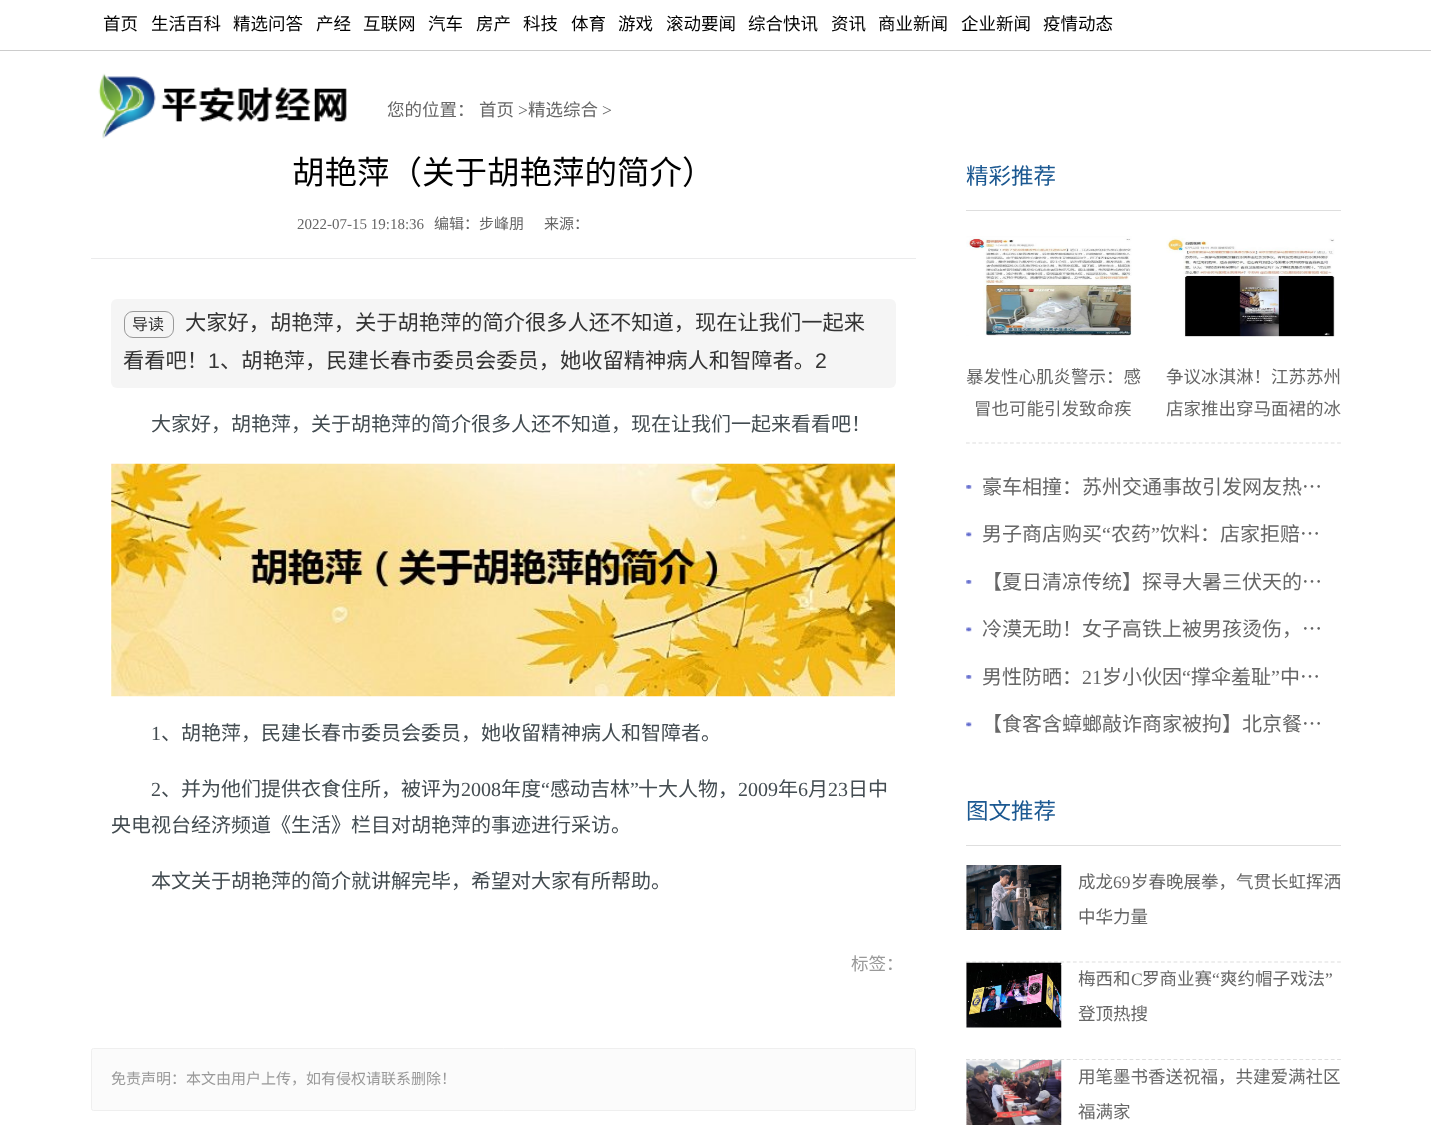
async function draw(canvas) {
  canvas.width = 1431
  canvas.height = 1133
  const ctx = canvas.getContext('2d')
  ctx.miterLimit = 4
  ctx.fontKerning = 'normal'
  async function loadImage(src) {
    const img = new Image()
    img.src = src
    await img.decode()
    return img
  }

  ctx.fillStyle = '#fff'
  ctx.fillRect(0, 0, 1431, 1133)
  ctx.fillStyle = '#ccc'
  ctx.fillRect(0, 50, 1431, 1)
  ctx.font = '17.5px Noto Sans CJK SC'
  ctx.fillStyle = '#000'
  ctx.fillText('首页', 103, 30)
  ctx.fillText('生活百科', 151, 30)
  ctx.fillText('精选问答', 233, 30)
  ctx.fillText('产经', 316, 30)
  ctx.fillText('互联网', 363, 30)
  ctx.fillText('汽车', 428, 30)
  ctx.fillText('房产', 476, 30)
  ctx.fillText('科技', 523, 30)
  ctx.fillText('体育', 571, 30)
  ctx.fillText('游戏', 618, 30)
  ctx.fillText('滚动要闻', 666, 30)
  ctx.fillText('综合快讯', 748, 30)
  ctx.fillText('资讯', 831, 30)
  ctx.fillText('商业新闻', 878, 30)
  ctx.fillText('企业新闻', 961, 30)
  ctx.fillText('疫情动态', 1043, 30)
  ctx.drawImage(await loadImage('image0.png'), 98, 73, 249, 66)
  ctx.fillStyle = '#666'
  ctx.fillText('您的位置：', 387, 116)
  ctx.fillText('首页', 479, 116)
  ctx.font = '17.5px Liberation Serif'
  ctx.fillText('>', 518, 116)
  ctx.font = '17.5px Noto Sans CJK SC'
  ctx.fillText('精选综合', 528, 116)
  ctx.font = '17.5px Liberation Serif'
  ctx.fillText('>', 602, 116)
  ctx.font = '32.5px Noto Sans CJK SC'
  ctx.fillStyle = '#000'
  ctx.fillText('胡艳萍（关于胡艳萍的简介）', 292, 184)
  ctx.font = '15px Liberation Serif'
  ctx.fillStyle = '#666'
  ctx.fillText('2022-07-15 19:18:36', 297, 229)
  ctx.font = '15px Noto Sans CJK SC'
  ctx.fillText('编辑：步峰朋', 434, 229)
  ctx.fillText('来源：', 544, 229)
  ctx.fillStyle = '#ebebec'
  ctx.fillRect(91, 258, 825, 1)
  ctx.fillStyle = '#f5f5f5'
  ctx.beginPath()
  ctx.roundRect(111, 299, 785, 89, 6)
  ctx.fill()
  ctx.beginPath()
  ctx.roundRect(124.5, 311.5, 49, 26, 8.5)
  ctx.strokeStyle = '#999'
  ctx.stroke()
  ctx.font = '16px Noto Sans CJK SC'
  ctx.fillStyle = '#333'
  ctx.fillText('导读', 132, 330)
  ctx.font = '21.25px Noto Sans CJK SC'
  ctx.fillText('大家好，胡艳萍，关于胡艳萍的简介很多人还不知道，现在让我们一起来', 185, 330)
  ctx.fillText('看看吧！', 123, 368)
  ctx.font = '21.25px Liberation Sans'
  ctx.fillText('1', 208, 368)
  ctx.font = '21.25px Noto Sans CJK SC'
  ctx.fillText('、胡艳萍，民建长春市委员会委员，她收留精神病人和智障者。', 220, 368)
  ctx.font = '21.25px Liberation Sans'
  ctx.fillText('2', 815, 368)
  ctx.font = '20px Noto Sans CJK SC'
  ctx.fillStyle = '#424b50'
  ctx.fillText('大家好，胡艳萍，关于胡艳萍的简介很多人还不知道，现在让我们一起来看看吧！', 151, 431)
  ctx.drawImage(await loadImage('image1.png'), 111, 463, 784, 234)
  ctx.font = '20px Liberation Serif'
  ctx.fillText('1', 151, 740)
  ctx.font = '20px Noto Sans CJK SC'
  ctx.fillText('、胡艳萍，民建长春市委员会委员，她收留精神病人和智障者。', 161, 740)
  ctx.font = '20px Liberation Serif'
  ctx.fillText('2', 151, 796)
  ctx.font = '20px Noto Sans CJK SC'
  ctx.fillText('、并为他们提供衣食住所，被评为', 161, 796)
  ctx.font = '20px Liberation Serif'
  ctx.fillText('2008', 461, 796)
  ctx.font = '20px Noto Sans CJK SC'
  ctx.fillText('年度', 501, 796)
  ctx.font = '20px Liberation Serif'
  ctx.fillText('“', 541, 796)
  ctx.font = '20px Noto Sans CJK SC'
  ctx.fillText('感动吉林', 550, 796)
  ctx.font = '20px Liberation Serif'
  ctx.fillText('”', 630, 796)
  ctx.font = '20px Noto Sans CJK SC'
  ctx.fillText('十大人物，', 638, 796)
  ctx.font = '20px Liberation Serif'
  ctx.fillText('2009', 738, 796)
  ctx.font = '20px Noto Sans CJK SC'
  ctx.fillText('年', 778, 796)
  ctx.font = '20px Liberation Serif'
  ctx.fillText('6', 798, 796)
  ctx.font = '20px Noto Sans CJK SC'
  ctx.fillText('月', 808, 796)
  ctx.font = '20px Liberation Serif'
  ctx.fillText('23', 828, 796)
  ctx.font = '20px Noto Sans CJK SC'
  ctx.fillText('日中', 848, 796)
  ctx.fillText('央电视台经济频道《生活》栏目对胡艳萍的事迹进行采访。', 111, 832)
  ctx.fillText('本文关于胡艳萍的简介就讲解完毕，希望对大家有所帮助。', 151, 888)
  ctx.font = '17.5px Noto Sans CJK SC'
  ctx.fillStyle = '#999'
  ctx.fillText('标签：', 851, 970)
  ctx.fillStyle = '#fbfbfb'
  ctx.beginPath()
  ctx.roundRect(91.5, 1048.5, 824, 62, 2)
  ctx.fill()
  ctx.strokeStyle = '#efefef'
  ctx.stroke()
  ctx.font = '15px Noto Sans CJK SC'
  ctx.fillStyle = '#999'
  ctx.fillText('免责声明：本文由用户上传，如有侵权请联系删除！', 111, 1084)
  ctx.fillStyle = '#dedede'
  ctx.fillRect(966, 210, 375, 1)
  ctx.font = '22.5px Noto Sans CJK SC'
  ctx.fillStyle = '#1b5891'
  ctx.fillText('精彩推荐', 966, 184)
  ctx.beginPath()
  ctx.moveTo(966, 443)
  ctx.lineTo(1341, 443)
  ctx.strokeStyle = '#dedede'
  ctx.lineWidth = 1.2
  ctx.setLineDash([3.75, 2.54])
  ctx.stroke()
  ctx.drawImage(await loadImage('image2.png'), 966, 236, 166, 100)
  ctx.font = '17.5px Noto Sans CJK SC'
  ctx.fillStyle = '#666'
  ctx.fillText('暴发性心肌炎警示：感', 966, 383)
  ctx.fillText('冒也可能引发致命疾', 974, 415)
  ctx.drawImage(await loadImage('image3.png'), 1166, 236, 169, 101)
  ctx.fillText('争议冰淇淋！江苏苏州', 1166, 383)
  ctx.fillText('店家推出穿马面裙的冰', 1166, 415)
  ctx.drawImage(await loadImage('image4.png'), 966, 485, 6, 4)
  ctx.font = '20px Noto Sans CJK SC'
  ctx.fillText('豪车相撞：苏州交通事故引发网友热…', 982, 494)
  ctx.drawImage(await loadImage('image5.png'), 966, 532, 6, 5)
  ctx.fillText('男子商店购买', 982, 541)
  ctx.font = '20px Liberation Serif'
  ctx.fillText('“', 1102, 541)
  ctx.font = '20px Noto Sans CJK SC'
  ctx.fillText('农药', 1111, 541)
  ctx.font = '20px Liberation Serif'
  ctx.fillText('”', 1151, 541)
  ctx.font = '20px Noto Sans CJK SC'
  ctx.fillText('饮料：店家拒赔…', 1160, 541)
  ctx.drawImage(await loadImage('image4.png'), 966, 580, 6, 4)
  ctx.fillText('【夏日清凉传统】探寻大暑三伏天的…', 982, 589)
  ctx.drawImage(await loadImage('image5.png'), 966, 627, 6, 5)
  ctx.fillText('冷漠无助！女子高铁上被男孩烫伤，…', 982, 636)
  ctx.drawImage(await loadImage('image4.png'), 966, 675, 6, 4)
  ctx.fillText('男性防晒：', 982, 684)
  ctx.font = '20px Liberation Serif'
  ctx.fillText('21', 1082, 684)
  ctx.font = '20px Noto Sans CJK SC'
  ctx.fillText('岁小伙因', 1102, 684)
  ctx.font = '20px Liberation Serif'
  ctx.fillText('“', 1182, 684)
  ctx.font = '20px Noto Sans CJK SC'
  ctx.fillText('撑伞羞耻', 1191, 684)
  ctx.font = '20px Liberation Serif'
  ctx.fillText('”', 1271, 684)
  ctx.font = '20px Noto Sans CJK SC'
  ctx.fillText('中…', 1280, 684)
  ctx.drawImage(await loadImage('image5.png'), 966, 722, 6, 5)
  ctx.fillText('【食客含蟑螂敲诈商家被拘】北京餐…', 982, 731)
  ctx.fillStyle = '#dedede'
  ctx.fillRect(966, 845, 375, 1)
  ctx.font = '22.5px Noto Sans CJK SC'
  ctx.fillStyle = '#1b5891'
  ctx.fillText('图文推荐', 966, 819)
  ctx.beginPath()
  ctx.moveTo(966, 962)
  ctx.lineTo(1341, 962)
  ctx.stroke()
  ctx.drawImage(await loadImage('image6.png'), 966, 865, 96, 65)
  ctx.font = '17.5px Noto Sans CJK SC'
  ctx.fillStyle = '#666'
  ctx.fillText('成龙', 1078, 888)
  ctx.font = '17.5px Liberation Serif'
  ctx.fillText('69', 1113, 888)
  ctx.font = '17.5px Noto Sans CJK SC'
  ctx.fillText('岁春晚展拳，气贯长虹挥洒', 1131, 888)
  ctx.fillText('中华力量', 1078, 923)
  ctx.beginPath()
  ctx.moveTo(966, 1059.5)
  ctx.lineTo(1341, 1059.5)
  ctx.stroke()
  ctx.drawImage(await loadImage('image7.png'), 966, 962, 96, 66)
  ctx.fillText('梅西和', 1078, 985)
  ctx.font = '17.5px Liberation Serif'
  ctx.fillText('C', 1131, 985)
  ctx.font = '17.5px Noto Sans CJK SC'
  ctx.fillText('罗商业赛', 1142, 985)
  ctx.font = '17.5px Liberation Serif'
  ctx.fillText('“', 1212, 985)
  ctx.font = '17.5px Noto Sans CJK SC'
  ctx.fillText('爽约帽子戏法', 1220, 985)
  ctx.font = '17.5px Liberation Serif'
  ctx.fillText('”', 1325, 985)
  ctx.font = '17.5px Noto Sans CJK SC'
  ctx.fillText('登顶热搜', 1078, 1020)
  ctx.drawImage(await loadImage('image8.png'), 966, 1060, 96, 65)
  ctx.fillText('用笔墨书香送祝福，共建爱满社区', 1078, 1083)
  ctx.fillText('福满家', 1078, 1118)
}

draw(document.querySelector('canvas'))
